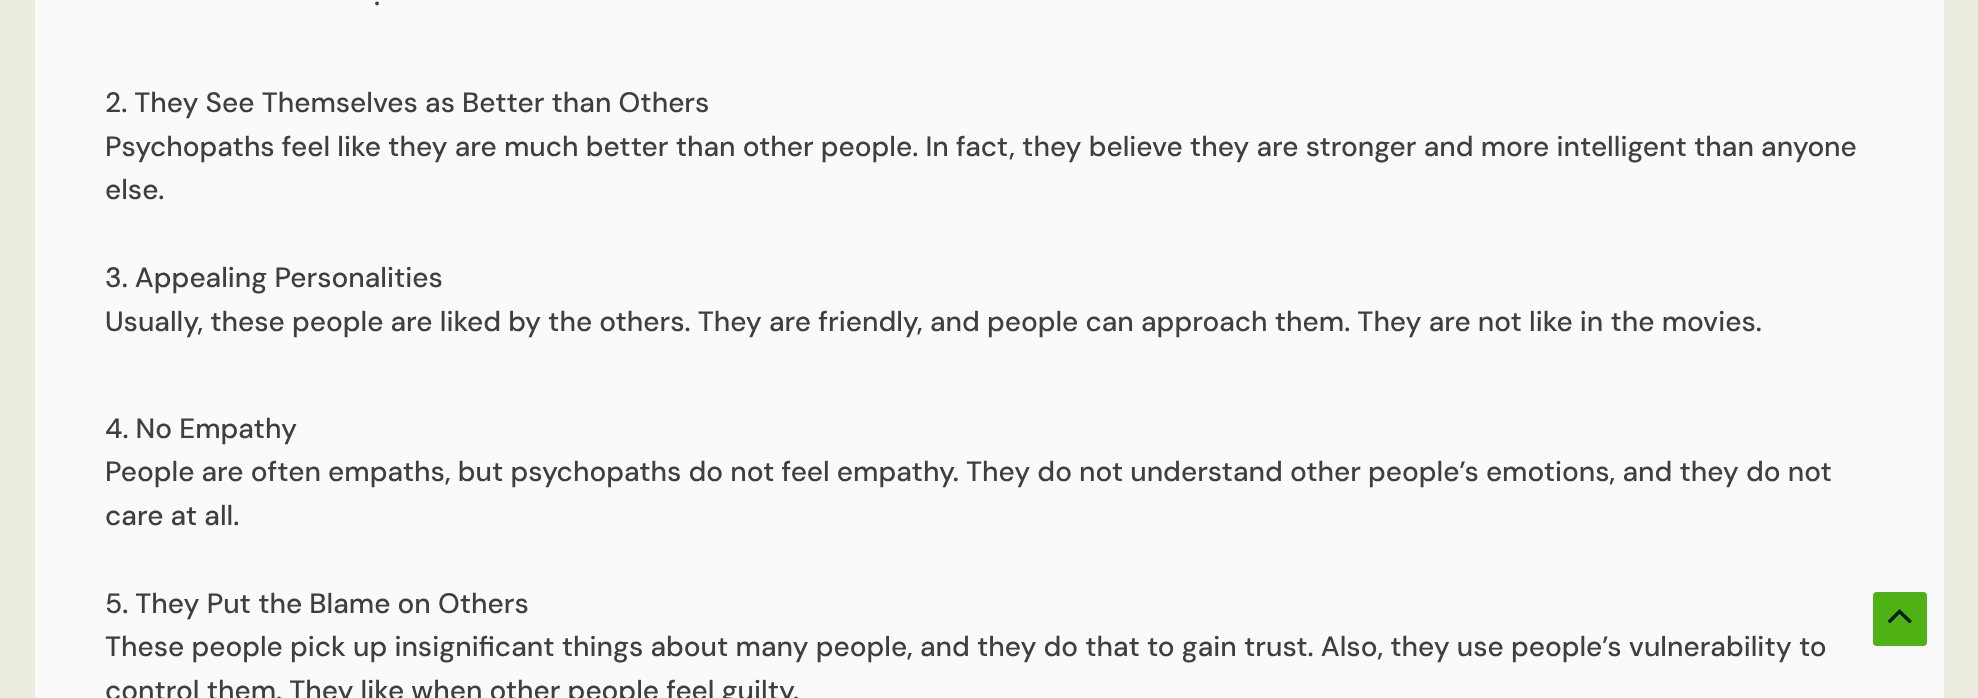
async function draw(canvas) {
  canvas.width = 1978
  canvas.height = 698
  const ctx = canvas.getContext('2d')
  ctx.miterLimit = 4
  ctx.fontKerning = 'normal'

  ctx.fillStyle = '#ebebe0'
  ctx.fillRect(0, 0, 1978, 698)
  ctx.fillStyle = '#fafafa'
  ctx.fillRect(35, 0, 1909, 698)
  ctx.font = '500 28px DM Sans'
  ctx.fillStyle = '#3c4040'
  ctx.fillText('.', 374, 5)
  ctx.fillText('2. They See Themselves as Better than Others', 105, 112)
  ctx.fillText('Psychopaths feel like they are much better than other people. In fact, they believe they are stronger and more intelligent than anyone', 105, 156)
  ctx.fillText('else.', 105, 199)
  ctx.fillText('3. Appealing Personalities', 105, 287)
  ctx.fillText('Usually, these people are liked by the others. They are friendly, and people can approach them. They are not like in the movies.', 105, 331)
  ctx.fillText('4. No Empathy', 105, 438)
  ctx.fillText('People are often empaths, but psychopaths do not feel empathy. They do not understand other people’s emotions, and they do not', 105, 481)
  ctx.fillText('care at all.', 105, 525)
  ctx.fillText('5. They Put the Blame on Others', 105, 613)
  ctx.fillText('These people pick up insignificant things about many people, and they do that to gain trust. Also, they use people’s vulnerability to', 105, 656)
  ctx.fillText('control them. They like when other people feel guilty.', 105, 700)
  ctx.fillStyle = '#4eb215'
  ctx.beginPath()
  ctx.roundRect(1873, 592, 54, 54, 4)
  ctx.fill()
  ctx.save()
  ctx.beginPath()
  ctx.rect(1878, 607, 42, 16)
  ctx.clip()
  ctx.fillStyle = '#071f1b'
  ctx.beginPath()
  ctx.moveTo(1912, 621)
  ctx.lineTo(1899.5, 609)
  ctx.lineTo(1887.5, 621)
  ctx.lineTo(1890, 623.5)
  ctx.lineTo(1899.5, 614)
  ctx.lineTo(1909.5, 623.5)
  ctx.closePath()
  ctx.fill()
  ctx.restore()
}

draw(document.querySelector('canvas'))
